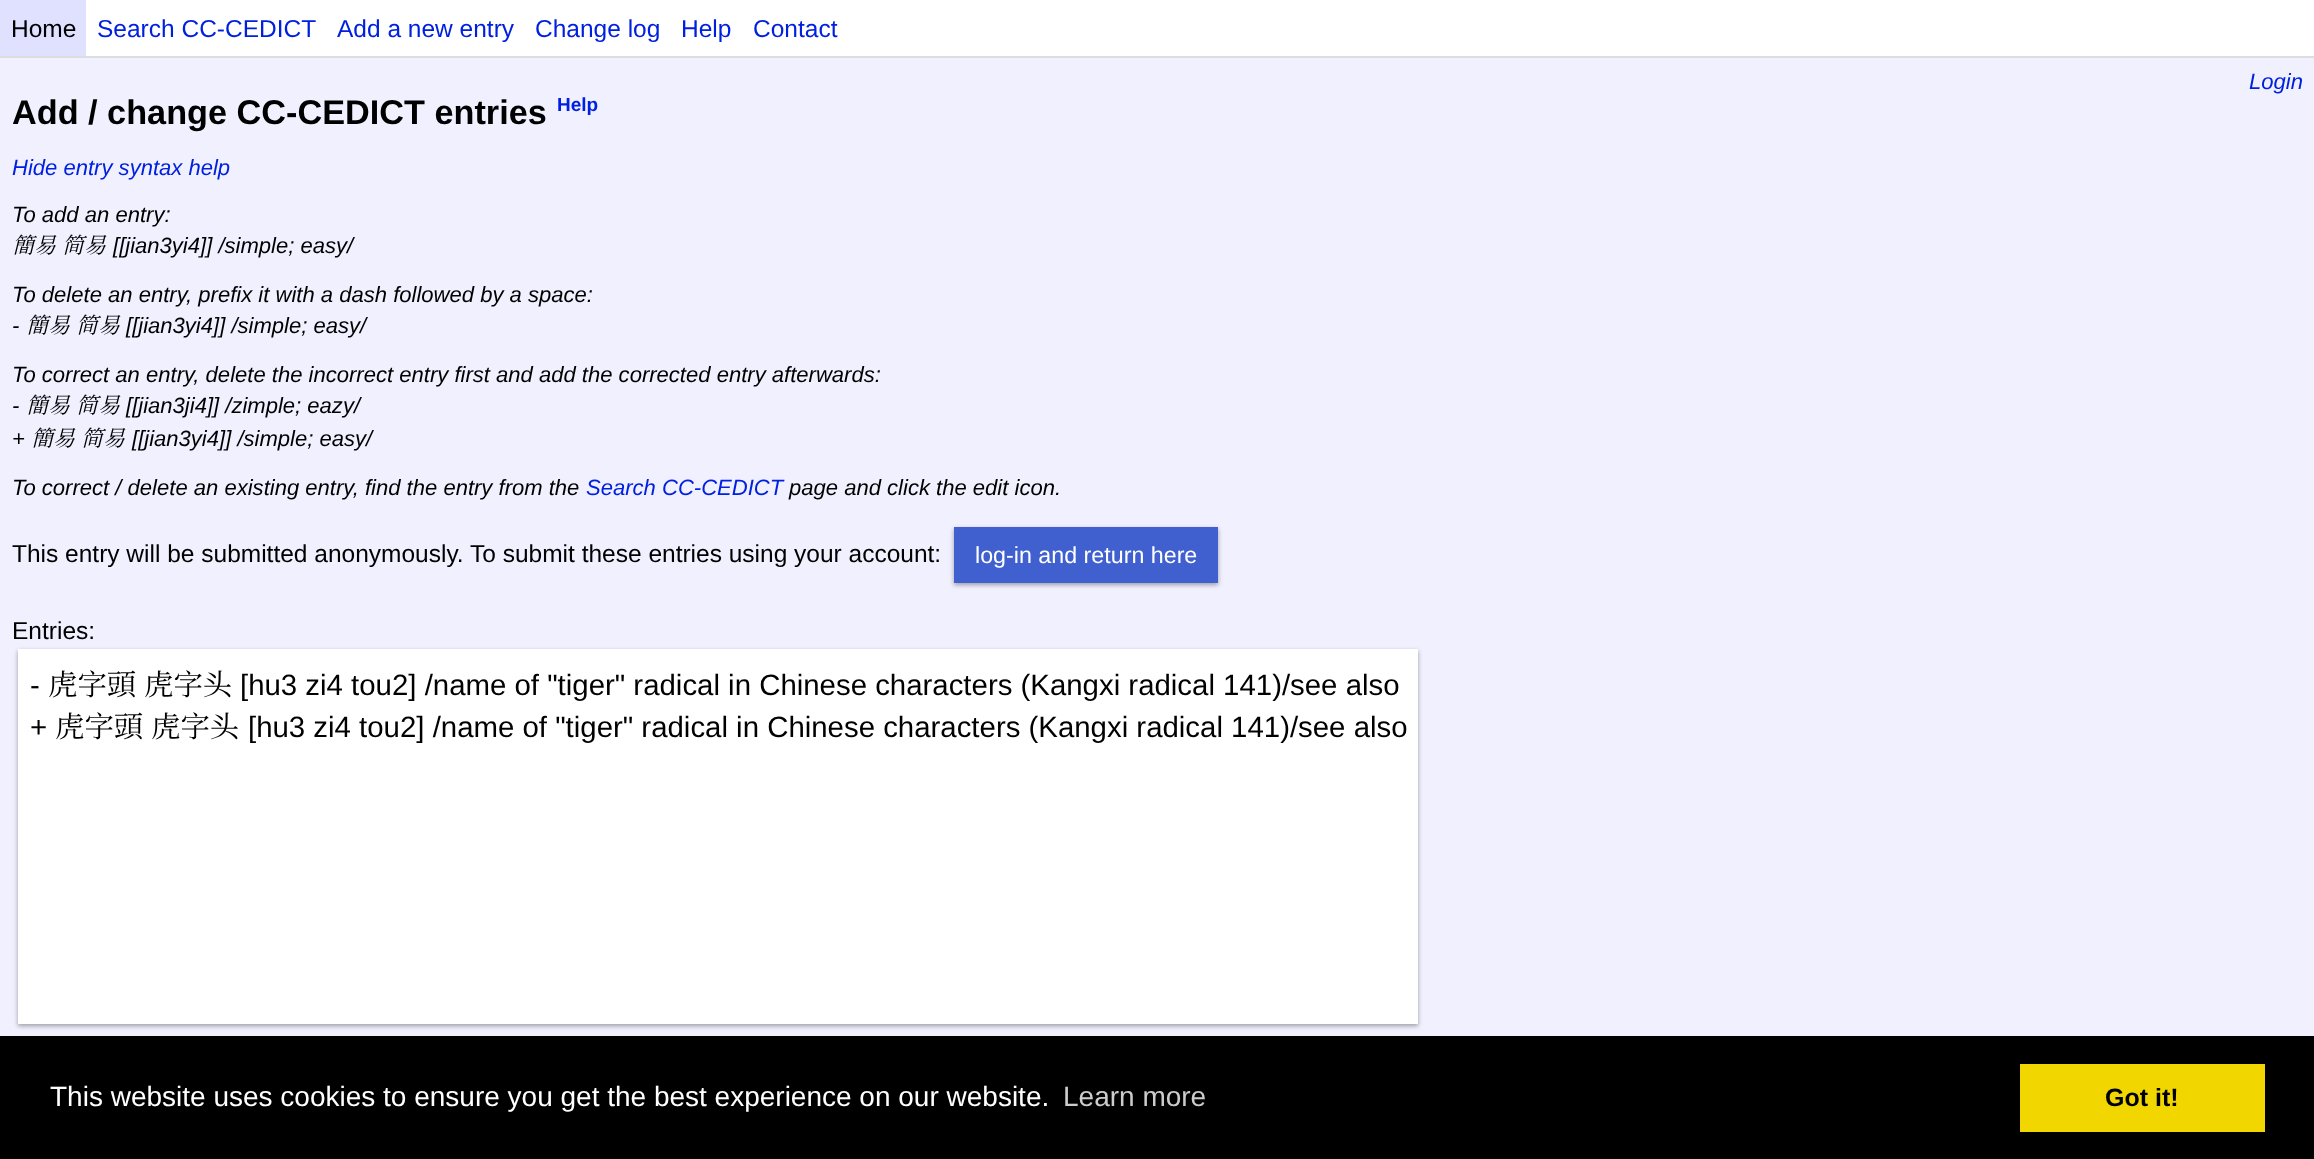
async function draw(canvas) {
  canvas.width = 2314
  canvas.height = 1159
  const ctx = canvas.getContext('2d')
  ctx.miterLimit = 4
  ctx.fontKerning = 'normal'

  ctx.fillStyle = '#f0f0ff'
  ctx.fillRect(0, 0, 2314, 1159)
  ctx.fillStyle = '#fff'
  ctx.fillRect(86, 0, 2228, 56)
  ctx.fillStyle = '#ddd'
  ctx.fillRect(0, 56, 2314, 2)
  ctx.fillStyle = '#e0e0ff'
  ctx.fillRect(0, 0, 86, 56)
  ctx.font = '24.5px Liberation Sans'
  ctx.fillStyle = '#000'
  ctx.fillText('Home', 11, 37)
  ctx.fillStyle = '#0020e0'
  ctx.fillText('Search CC-CEDICT', 97, 37)
  ctx.fillText('Add a new entry', 337, 37)
  ctx.fillText('Change log', 535, 37)
  ctx.fillText('Help', 681, 37)
  ctx.fillText('Contact', 753, 37)
  ctx.font = 'italic 22.05px Liberation Sans'
  ctx.fillText('Login', 2249, 89)
  ctx.font = 'bold 34.25px Liberation Sans'
  ctx.fillStyle = '#000'
  ctx.fillText('Add / change CC-CEDICT entries', 12, 124)
  ctx.font = 'bold 19px Liberation Sans'
  ctx.fillStyle = '#0020e0'
  ctx.fillText('Help', 557, 111)
  ctx.font = 'italic 22.05px Liberation Sans'
  ctx.fillText('Hide entry syntax help', 12, 175)
  ctx.fillStyle = '#000'
  ctx.fillText('To add an entry:', 12, 222)
  ctx.font = 'italic 22.05px Noto Serif CJK SC'
  ctx.fillText('簡易', 12, 253)
  ctx.fillText('简易', 62, 253)
  ctx.font = 'italic 22.05px Liberation Sans'
  ctx.fillText('[[jian3yi4]] /simple; easy/', 113, 253)
  ctx.fillText('To delete an entry, prefix it with a dash followed by a space:', 12, 302)
  ctx.fillText('-', 12, 333)
  ctx.font = 'italic 22.05px Noto Serif CJK SC'
  ctx.fillText('簡易', 26, 333)
  ctx.fillText('简易', 76, 333)
  ctx.font = 'italic 22.05px Liberation Sans'
  ctx.fillText('[[jian3yi4]] /simple; easy/', 126, 333)
  ctx.fillText('To correct an entry, delete the incorrect entry first and add the corrected entry afterwards:', 12, 382)
  ctx.fillText('-', 12, 413)
  ctx.font = 'italic 22.05px Noto Serif CJK SC'
  ctx.fillText('簡易', 26, 413)
  ctx.fillText('简易', 76, 413)
  ctx.font = 'italic 22.05px Liberation Sans'
  ctx.fillText('[[jian3ji4]] /zimple; eazy/', 126, 413)
  ctx.fillText('+', 12, 446)
  ctx.font = 'italic 22.05px Noto Serif CJK SC'
  ctx.fillText('簡易', 31, 446)
  ctx.fillText('简易', 81, 446)
  ctx.font = 'italic 22.05px Liberation Sans'
  ctx.fillText('[[jian3yi4]] /simple; easy/', 132, 446)
  ctx.fillText('To correct / delete an existing entry, find the entry from the', 12, 495)
  ctx.fillStyle = '#0020e0'
  ctx.fillText('Search CC-CEDICT', 586, 495)
  ctx.fillStyle = '#000'
  ctx.fillText('page and click the edit icon.', 789, 495)
  ctx.font = '24.5px Liberation Sans'
  ctx.fillText('This entry will be submitted anonymously. To submit these entries using your account:', 12, 562)
  ctx.fillStyle = '#0000003d'
  ctx.filter = 'blur(2px)'
  ctx.beginPath()
  ctx.rect(954, 529, 264, 56)
  ctx.fill()
  ctx.filter = 'none'
  ctx.fillStyle = '#0000001f'
  ctx.filter = 'blur(2.5px)'
  ctx.beginPath()
  ctx.rect(954, 529, 264, 56)
  ctx.fill()
  ctx.filter = 'none'
  ctx.fillStyle = '#4060d0'
  ctx.fillRect(954, 527, 264, 56)
  ctx.font = '23.25px Liberation Sans'
  ctx.fillStyle = '#fff'
  ctx.fillText('log-in and return here', 975, 563)
  ctx.font = '24.5px Liberation Sans'
  ctx.fillStyle = '#000'
  ctx.fillText('Entries:', 12, 639)
  ctx.fillStyle = '#0000003d'
  ctx.filter = 'blur(2px)'
  ctx.beginPath()
  ctx.rect(18, 651, 1400, 375)
  ctx.fill()
  ctx.filter = 'none'
  ctx.fillStyle = '#0000001f'
  ctx.filter = 'blur(2.5px)'
  ctx.beginPath()
  ctx.rect(18, 651, 1400, 375)
  ctx.fill()
  ctx.filter = 'none'
  ctx.fillStyle = '#fff'
  ctx.fillRect(18, 649, 1400, 375)
  ctx.font = '29.4px Liberation Sans'
  ctx.fillStyle = '#000'
  ctx.fillText('-', 30, 695)
  ctx.font = '29.4px Noto Serif CJK SC'
  ctx.fillText('虎字頭', 48, 695)
  ctx.fillText('虎字头', 144, 695)
  ctx.font = '29.4px Liberation Sans'
  ctx.fillText('[hu3 zi4 tou2] /name of "tiger" radical in Chinese characters (Kangxi radical 141)/see also', 240, 695)
  ctx.fillText('+', 30, 737)
  ctx.font = '29.4px Noto Serif CJK SC'
  ctx.fillText('虎字頭', 55, 737)
  ctx.fillText('虎字头', 151, 737)
  ctx.font = '29.4px Liberation Sans'
  ctx.fillText('[hu3 zi4 tou2] /name of "tiger" radical in Chinese characters (Kangxi radical 141)/see also', 248, 737)
  ctx.fillRect(0, 1036, 2314, 123)
  ctx.font = '28px Liberation Sans'
  ctx.fillStyle = '#fff'
  ctx.fillText('This website uses cookies to ensure you get the best experience on our website.', 50, 1106)
  ctx.fillStyle = '#ccc'
  ctx.fillText('Learn more', 1063, 1106)
  ctx.fillStyle = '#f1d600'
  ctx.fillRect(2020, 1064, 245, 68)
  ctx.font = 'bold 25px Liberation Sans'
  ctx.fillStyle = '#000'
  ctx.fillText('Got it!', 2105, 1106)
}

draw(document.querySelector('canvas'))
